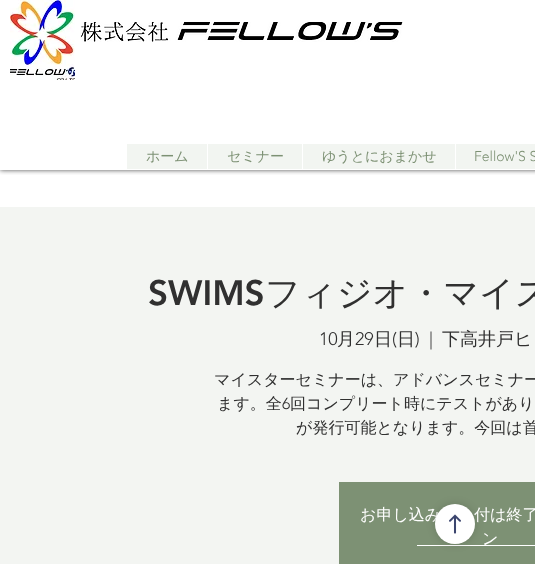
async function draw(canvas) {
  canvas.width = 535
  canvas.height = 564
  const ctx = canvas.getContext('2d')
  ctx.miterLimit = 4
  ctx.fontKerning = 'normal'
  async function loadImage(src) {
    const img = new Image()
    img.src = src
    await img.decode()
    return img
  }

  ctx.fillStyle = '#fff'
  ctx.fillRect(0, 0, 535, 564)
  ctx.save()
  ctx.beginPath()
  ctx.rect(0, 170, 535, 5)
  ctx.clip()
  ctx.fillStyle = '#000000b3'
  ctx.filter = 'blur(2.5px)'
  ctx.beginPath()
  ctx.rect(0, 0, 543, 170)
  ctx.fill()
  ctx.filter = 'none'
  ctx.restore()
  ctx.drawImage(await loadImage('image0.png'), 10, 0, 65, 80)
  ctx.drawImage(await loadImage('image1.png'), 80, 22, 323, 20)
  ctx.fillStyle = '#f2f5f1'
  ctx.fillRect(127, 144, 408, 25)
  ctx.font = '500 14px WenQuanYi Zen Hei'
  ctx.fillStyle = '#7d9174'
  ctx.fillText('ホーム', 146, 161)
  ctx.fillStyle = '#fff'
  ctx.fillRect(207, 144, 1, 25)
  ctx.fillStyle = '#7d9174'
  ctx.fillText('セミナー', 227, 161)
  ctx.fillStyle = '#fff'
  ctx.fillRect(302, 144, 1, 25)
  ctx.fillStyle = '#7d9174'
  ctx.fillText('ゆうとにおまかせ', 322, 161)
  ctx.fillStyle = '#fff'
  ctx.fillRect(455, 144, 1, 25)
  ctx.font = '300 14px "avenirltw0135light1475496"'
  ctx.fillStyle = '#7d9174'
  ctx.fillText('Fellow\'S S', 474, 161)
  ctx.fillStyle = '#f3f5f2'
  ctx.fillRect(0, 207, 535, 357)
  ctx.font = '900 35px "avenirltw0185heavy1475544"'
  ctx.fillStyle = '#303030'
  ctx.fillText('SWIMS', 148, 305)
  ctx.font = '500 35px WenQuanYi Zen Hei'
  ctx.fillText('フィジオ・マイス', 265, 305)
  ctx.font = '300 18px "avenirltw0135light1475496"'
  ctx.fillText('10', 319, 345)
  ctx.font = '500 18px WenQuanYi Zen Hei'
  ctx.fillText('月', 337, 345)
  ctx.font = '300 18px "avenirltw0135light1475496"'
  ctx.fillText('29', 355, 345)
  ctx.font = '500 18px WenQuanYi Zen Hei'
  ctx.fillText('日', 374, 345)
  ctx.font = '300 18px "avenirltw0135light1475496"'
  ctx.fillText('(', 392, 345)
  ctx.font = '500 18px WenQuanYi Zen Hei'
  ctx.fillText('日', 397, 345)
  ctx.font = '300 18px "avenirltw0135light1475496"'
  ctx.fillText(')', 415, 345)
  ctx.fillText('|', 429, 345)
  ctx.font = '500 18px WenQuanYi Zen Hei'
  ctx.fillText('下高井戸ヒ', 442, 345)
  ctx.font = '500 16px WenQuanYi Zen Hei'
  ctx.fillText('マイスターセミナーは、アドバンスセミナー', 214, 385)
  ctx.fillText('ます。全', 217, 409)
  ctx.font = '300 16px "avenirltw0135light1475496"'
  ctx.fillText('6', 282, 409)
  ctx.font = '500 16px WenQuanYi Zen Hei'
  ctx.fillText('回コンプリート時にテストがあり', 290, 409)
  ctx.fillText('が発行可能となります。今回は首', 296, 433)
  ctx.fillStyle = '#7d9174'
  ctx.fillRect(339, 482, 196, 82)
  ctx.fillStyle = '#fff'
  ctx.fillText('お申し込み', 360, 520)
  ctx.fillText('付は終了', 474, 520)
  ctx.fillRect(417, 545, 118, 1)
  ctx.fillText('ン', 482, 544)
  ctx.fillStyle = '#00000026'
  ctx.filter = 'blur(4px)'
  ctx.beginPath()
  ctx.roundRect(435, 504, 40, 40, 20)
  ctx.fill()
  ctx.filter = 'none'
  ctx.fillStyle = '#fff'
  ctx.beginPath()
  ctx.arc(455, 524, 20, 0, 2 * Math.PI)
  ctx.fill()
  ctx.drawImage(await loadImage('image2.png'), 449, 514, 12, 20)
}

draw(document.querySelector('canvas'))
